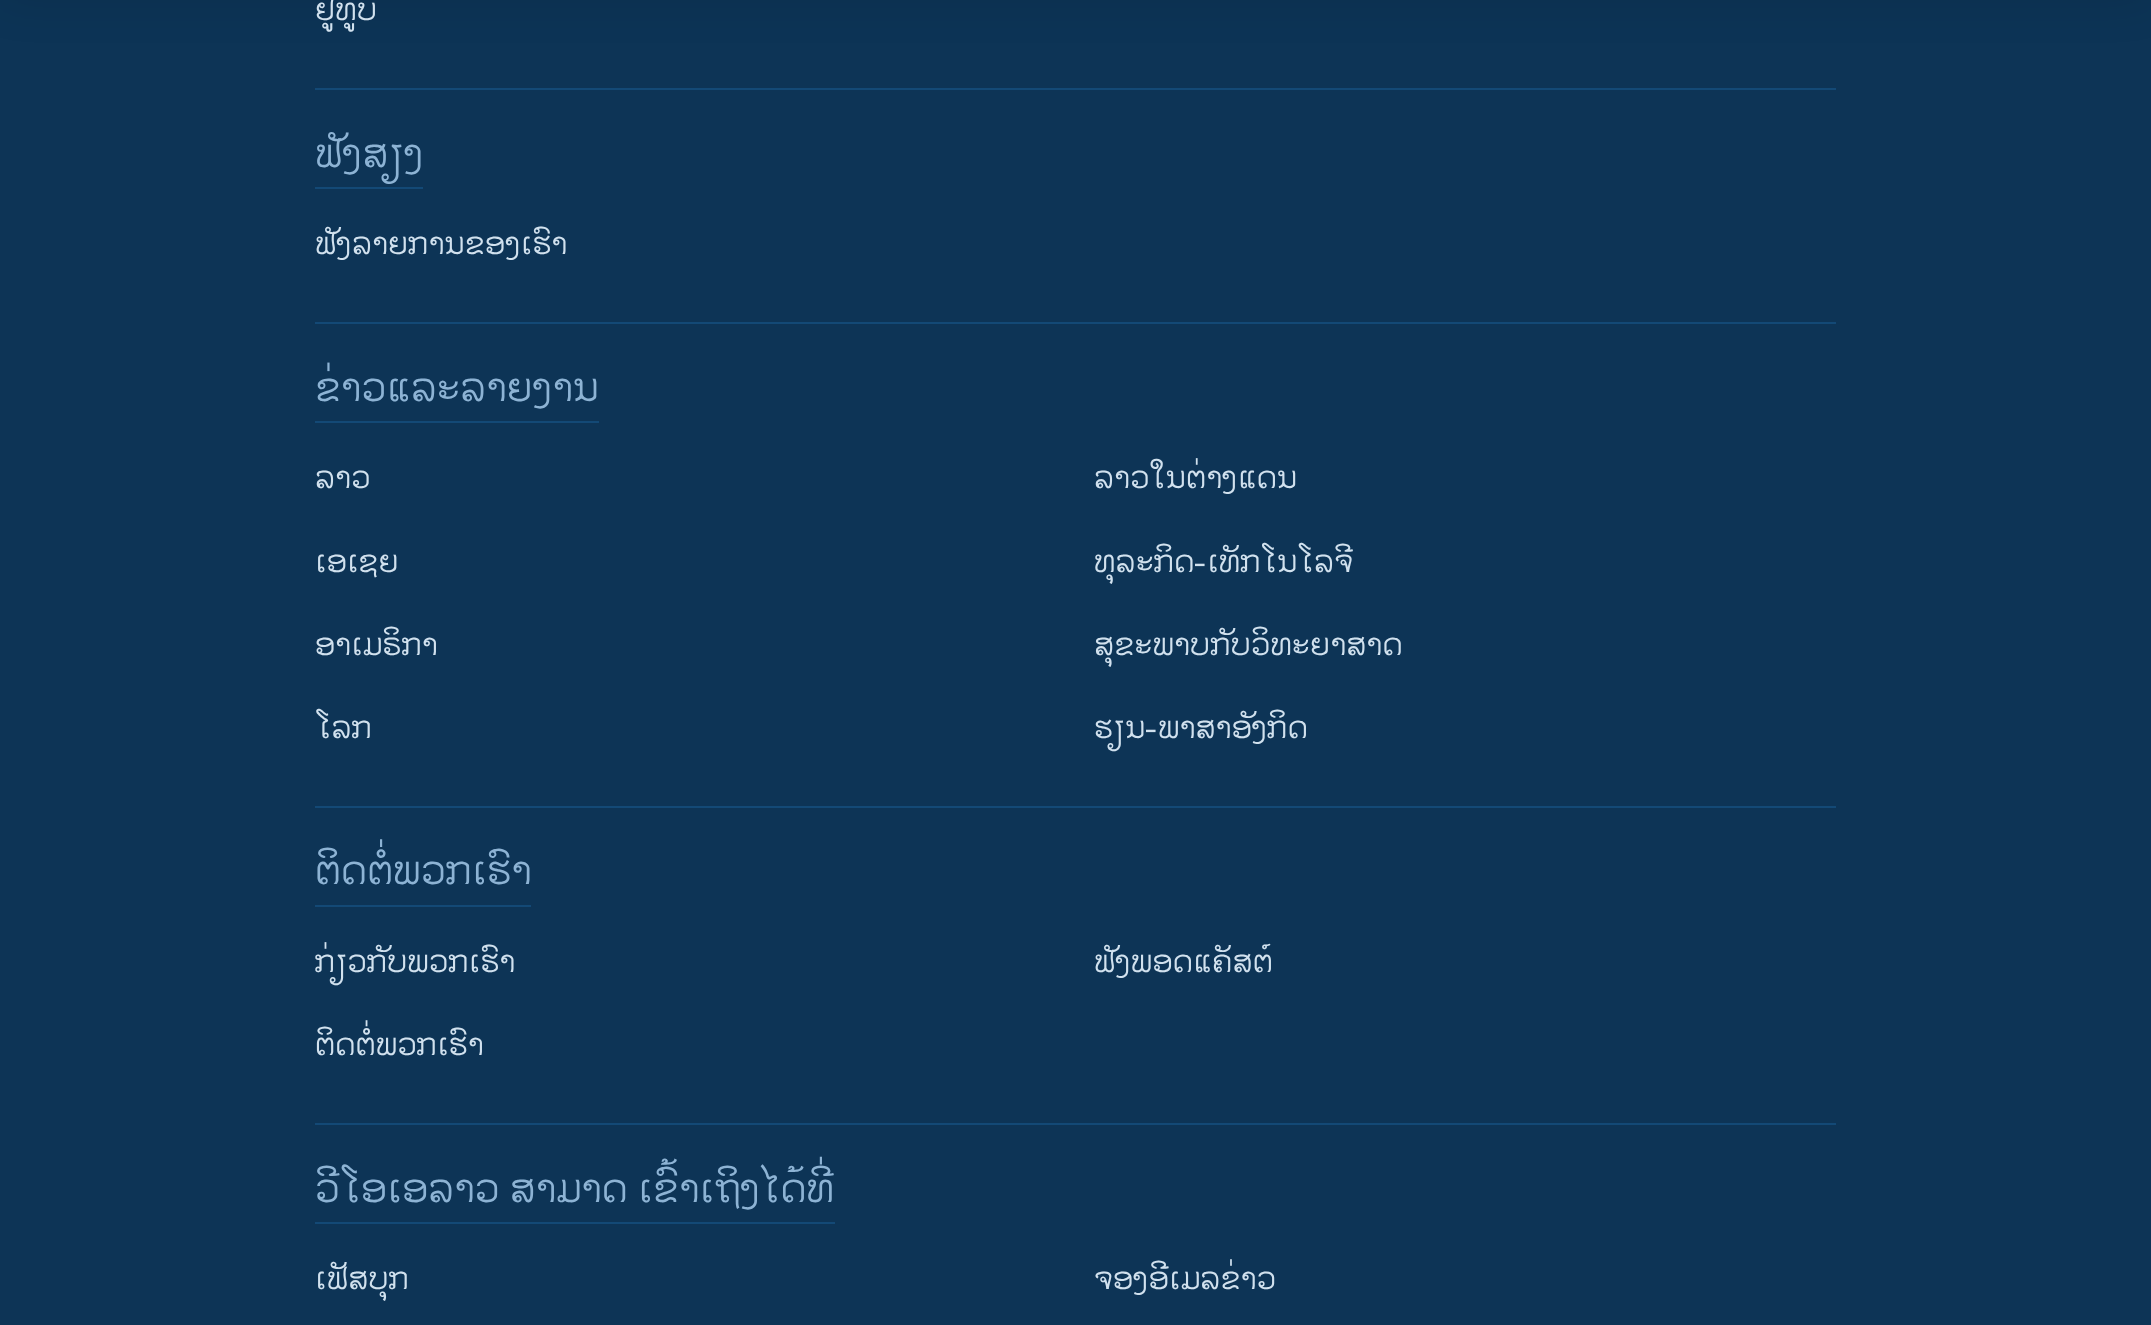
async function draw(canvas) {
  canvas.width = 2151
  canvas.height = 1325
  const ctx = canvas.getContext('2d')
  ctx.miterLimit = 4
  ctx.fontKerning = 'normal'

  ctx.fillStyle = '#0d3456'
  ctx.fillRect(0, 0, 2151, 1325)
  ctx.fillStyle = '#0000001a'
  ctx.filter = 'blur(22.5px)'
  ctx.beginPath()
  ctx.rect(0, -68, 2151, 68)
  ctx.fill()
  ctx.filter = 'none'
  ctx.font = '31.5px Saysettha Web'
  ctx.fillStyle = '#d1e1ee'
  ctx.fillText('ຢູທູບ', 315, 20)
  ctx.fillStyle = '#134976'
  ctx.fillRect(315, 88, 1521, 2)
  ctx.fillRect(315, 187, 108, 2)
  ctx.font = '40.5px Saysettha Web'
  ctx.fillStyle = '#8db3d4'
  ctx.fillText('ຟັງສຽງ', 315, 167)
  ctx.font = '31.5px Saysettha Web'
  ctx.fillStyle = '#d1e1ee'
  ctx.fillText('ຟັງລາຍການຂອງເຮົາ', 315, 254)
  ctx.fillStyle = '#134976'
  ctx.fillRect(315, 322, 1521, 2)
  ctx.fillRect(315, 421, 284, 2)
  ctx.font = '40.5px Saysettha Web'
  ctx.fillStyle = '#8db3d4'
  ctx.fillText('ຂ່າວແລະລາຍງານ', 315, 401)
  ctx.font = '31.5px Saysettha Web'
  ctx.fillStyle = '#d1e1ee'
  ctx.fillText('ລາວ', 315, 488)
  ctx.fillText('ລາວໃນຕ່າງແດນ', 1094, 488)
  ctx.fillText('ເອເຊຍ', 315, 572)
  ctx.fillText('ທຸລະກິດ-ເທັກໂນໂລຈີ', 1094, 572)
  ctx.fillText('ອາເມຣິກາ', 315, 655)
  ctx.fillText('ສຸຂະພາບກັບວິທະຍາສາດ', 1094, 655)
  ctx.fillText('ໂລກ', 315, 738)
  ctx.fillText('ຮຽນ-ພາສາອັງກິດ', 1094, 738)
  ctx.fillStyle = '#134976'
  ctx.fillRect(315, 806, 1521, 2)
  ctx.fillRect(315, 905, 216, 2)
  ctx.font = '40.5px Saysettha Web'
  ctx.fillStyle = '#8db3d4'
  ctx.fillText('ຕິດຕໍ່ພວກເຮົາ', 315, 884)
  ctx.font = '31.5px Saysettha Web'
  ctx.fillStyle = '#d1e1ee'
  ctx.fillText('ກ່ຽວກັບພວກເຮົາ', 315, 972)
  ctx.fillText('ຟັງພອດແຄັສຕ໌', 1094, 972)
  ctx.fillText('ຕິດຕໍ່ພວກເຮົາ', 315, 1055)
  ctx.fillStyle = '#134976'
  ctx.fillRect(315, 1123, 1521, 2)
  ctx.fillRect(315, 1222, 520, 2)
  ctx.font = '40.5px Saysettha Web'
  ctx.fillStyle = '#8db3d4'
  ctx.fillText('ວີໂອເອລາວ ສາມາດ ເຂົ້າເຖິງໄດ້ທີ່', 315, 1202)
  ctx.font = '31.5px Saysettha Web'
  ctx.fillStyle = '#d1e1ee'
  ctx.fillText('ເຟັສບຸກ', 315, 1289)
  ctx.fillText('ຈອງອີເມລຂ່າວ', 1094, 1289)
}

draw(document.querySelector('canvas'))
